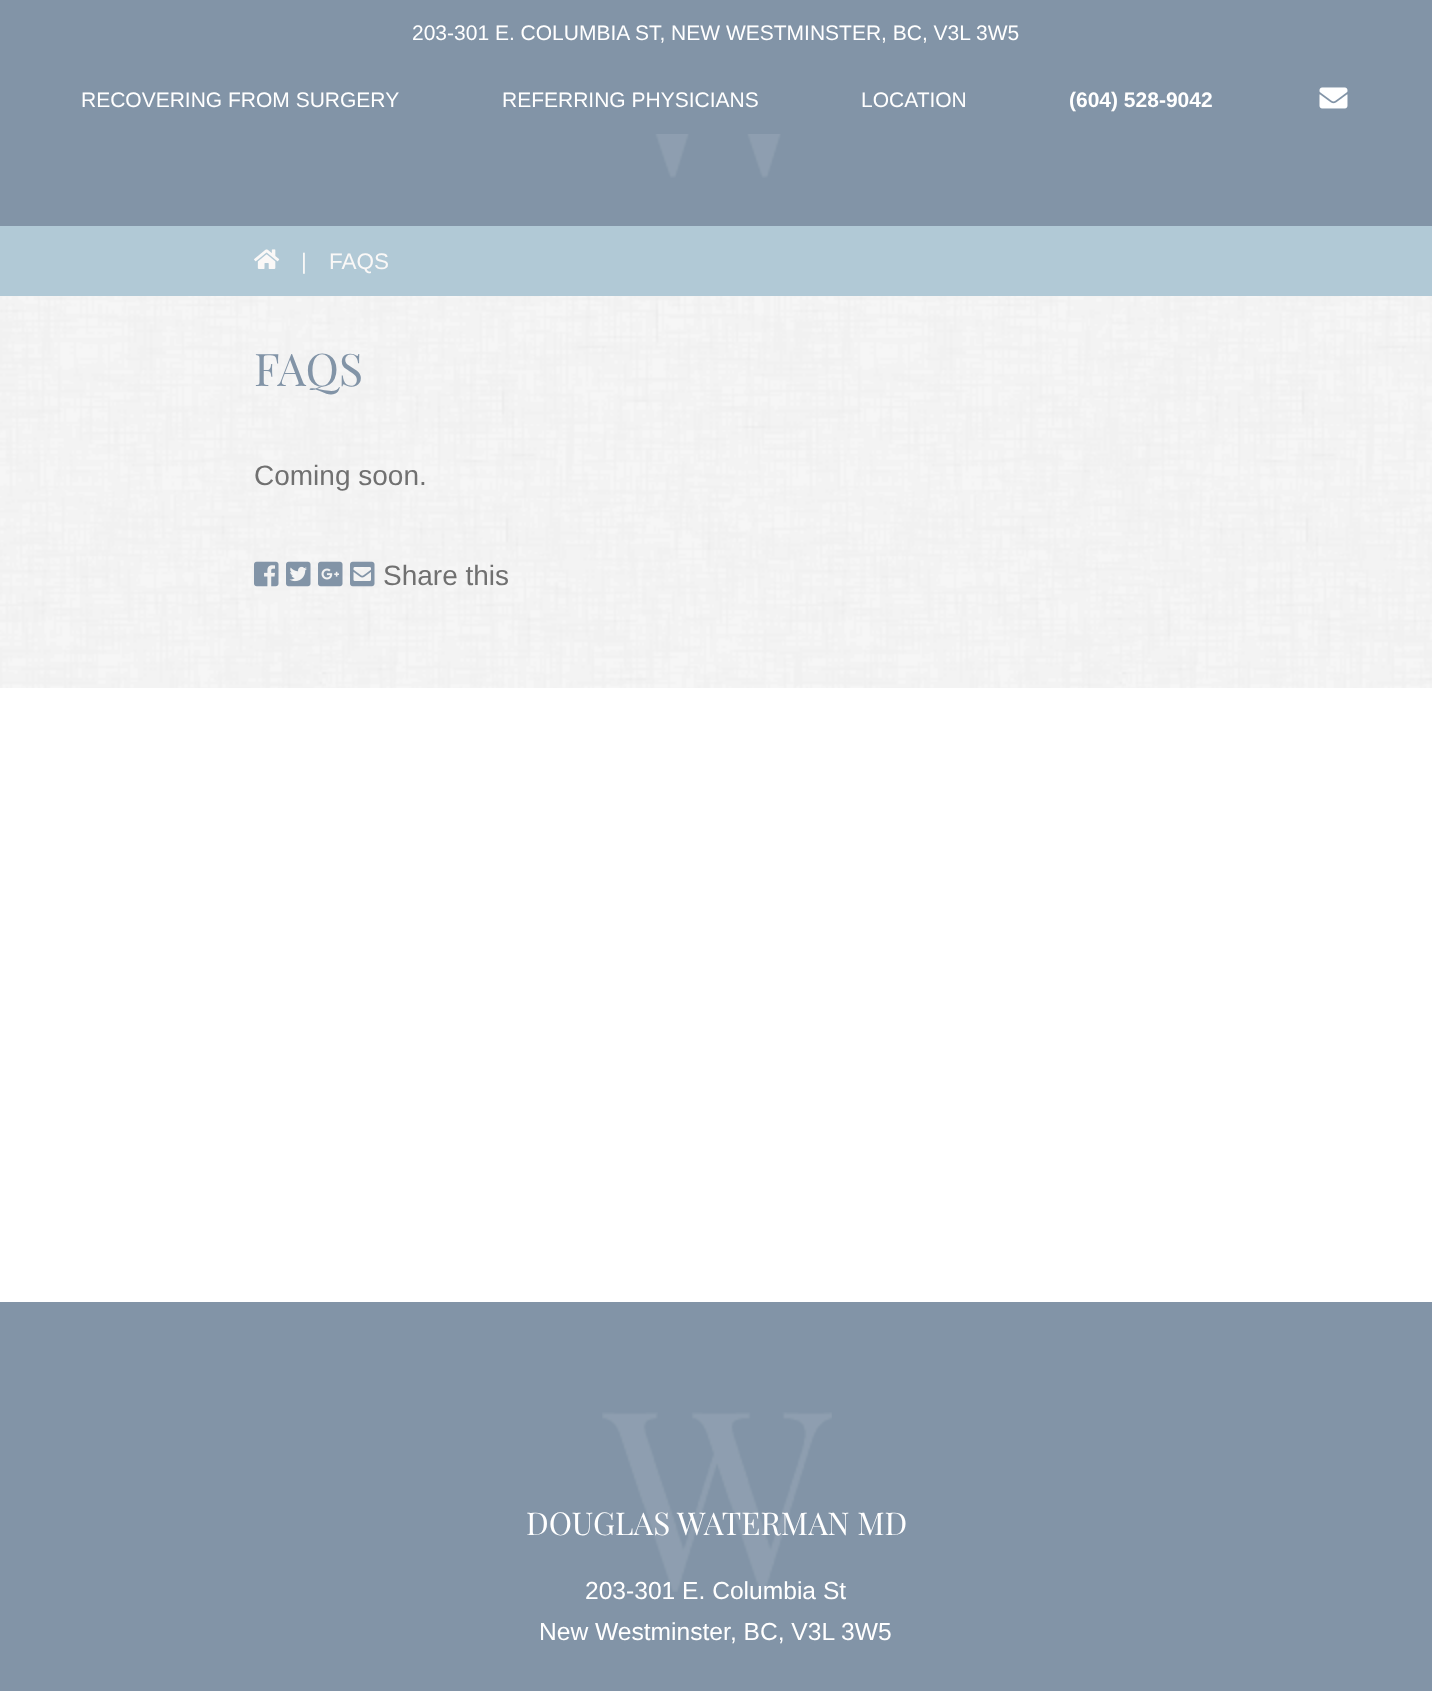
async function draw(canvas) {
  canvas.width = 1432
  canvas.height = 1691
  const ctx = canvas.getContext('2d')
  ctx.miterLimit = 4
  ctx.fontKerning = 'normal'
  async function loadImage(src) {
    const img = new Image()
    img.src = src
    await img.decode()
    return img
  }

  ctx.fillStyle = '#fff'
  ctx.fillRect(0, 0, 1432, 1691)
  ctx.fillStyle = '#8294a7'
  ctx.fillRect(0, 0, 1432, 226)
  ctx.font = '21px Liberation Sans'
  ctx.fillStyle = '#fff'
  ctx.fillText('203-301 E. COLUMBIA ST, NEW WESTMINSTER, BC, V3L 3W5', 412, 40)
  ctx.fillText('RECOVERING FROM SURGERY', 81, 107)
  ctx.fillText('REFERRING PHYSICIANS', 502, 107)
  ctx.fillText('LOCATION', 861, 107)
  ctx.font = 'bold 21px Liberation Sans'
  ctx.fillText('(604) 528-9042', 1069, 107)
  ctx.drawImage(await loadImage('image0.png'), 1319, 87, 29, 22)
  ctx.drawImage(await loadImage('image1.png'), 0, 296, 1432, 392)
  ctx.drawImage(await loadImage('image2.png'), 655, 134, 126, 44)
  ctx.fillStyle = '#b1c9d6'
  ctx.fillRect(0, 226, 1432, 70)
  ctx.drawImage(await loadImage('image3.png'), 254, 249, 26, 20)
  ctx.font = '22.5px Liberation Sans'
  ctx.fillStyle = '#faf8f7'
  ctx.fillText('|', 301, 269)
  ctx.fillText('FAQS', 329, 269)
  ctx.font = '45px Playfair Display'
  ctx.fillStyle = '#8294a7'
  ctx.fillText('FAQS', 254, 386)
  ctx.font = '28px Liberation Sans'
  ctx.fillStyle = '#707070'
  ctx.fillText('Coming soon.', 254, 485)
  ctx.drawImage(await loadImage('image4.png'), 254, 561, 25, 26)
  ctx.drawImage(await loadImage('image5.png'), 286, 561, 25, 26)
  ctx.drawImage(await loadImage('image6.png'), 318, 561, 25, 26)
  ctx.drawImage(await loadImage('image7.png'), 350, 561, 25, 26)
  ctx.fillText('Share this', 383, 585)
  ctx.fillStyle = '#8294a7'
  ctx.fillRect(0, 1302, 1432, 389)
  ctx.font = '31.4px Playfair Display'
  ctx.fillStyle = '#fff'
  ctx.fillText('DOUGLAS WATERMAN MD', 526, 1535)
  ctx.font = '24.6px Liberation Sans'
  ctx.fillText('203-301 E. Columbia St', 585, 1599)
  ctx.drawImage(await loadImage('image8.png'), 602, 1412, 230, 180)
  ctx.fillText('New Westminster, BC, V3L 3W5', 539, 1640)
}

draw(document.querySelector('canvas'))
